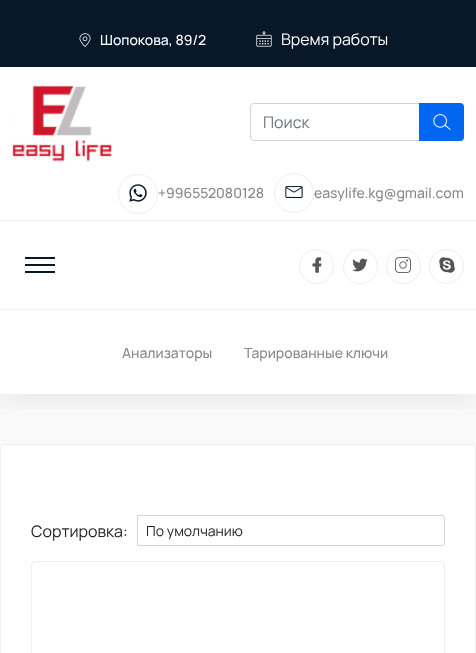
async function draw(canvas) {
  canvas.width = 476
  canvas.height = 653
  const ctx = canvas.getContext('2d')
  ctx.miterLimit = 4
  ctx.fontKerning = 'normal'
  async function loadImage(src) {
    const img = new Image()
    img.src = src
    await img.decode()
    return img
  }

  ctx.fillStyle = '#fff'
  ctx.fillRect(0, 0, 476, 653)
  ctx.fillStyle = '#f9f9f9'
  ctx.fillRect(0, 394, 476, 54)
  ctx.fillStyle = '#fff'
  ctx.beginPath()
  ctx.roundRect(0.5, 444.5, 475, 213, 3.5)
  ctx.fill()
  ctx.strokeStyle = '#eee'
  ctx.stroke()
  ctx.save()
  ctx.beginPath()
  ctx.rect(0, 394, 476, 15)
  ctx.clip()
  ctx.fillStyle = '#00000012'
  ctx.filter = 'blur(15px)'
  ctx.beginPath()
  ctx.rect(0, 317, 476, 84)
  ctx.fill()
  ctx.filter = 'none'
  ctx.restore()
  ctx.fillRect(0, 301, 476, 8)
  ctx.fillStyle = '#eee'
  ctx.fillRect(0, 309, 476, 1)
  ctx.fillStyle = '#081828'
  ctx.fillRect(0, 0, 476, 67)
  ctx.drawImage(await loadImage('image0.png'), 79, 33, 12, 14)
  ctx.font = '500 14px Manrope'
  ctx.fillStyle = '#fff'
  ctx.fillText('Шопокова, 89/2', 100, 45)
  ctx.drawImage(await loadImage('image1.png'), 256, 31, 16, 16)
  ctx.font = '16px Manrope'
  ctx.fillText('Время работы', 281, 45)
  ctx.fillStyle = '#eee'
  ctx.fillRect(0, 220, 476, 1)
  ctx.drawImage(await loadImage('image2.png'), 12, 85, 100, 77)
  ctx.beginPath()
  ctx.roundRect(250.5, 103.5, 171, 37, [3.5, 0, 0, 3.5])
  ctx.strokeStyle = '#ced4da'
  ctx.stroke()
  ctx.fillStyle = '#6c757d'
  ctx.fillText('Поиск', 263, 128)
  ctx.fillStyle = '#0167f3'
  ctx.beginPath()
  ctx.roundRect(419, 103, 45, 38, [0, 4, 4, 0])
  ctx.fill()
  ctx.drawImage(await loadImage('image3.png'), 433, 114, 18, 16)
  ctx.beginPath()
  ctx.arc(138, 194, 19.5, 0, 2 * Math.PI)
  ctx.strokeStyle = '#eee'
  ctx.stroke()
  ctx.drawImage(await loadImage('image4.png'), 129, 184, 18, 18)
  ctx.font = '500 14px Manrope'
  ctx.fillStyle = '#888'
  ctx.fillText('+996552080128', 158, 198)
  ctx.beginPath()
  ctx.arc(294, 193, 19.5, 0, 2 * Math.PI)
  ctx.stroke()
  ctx.drawImage(await loadImage('image5.png'), 285, 186, 18, 12)
  ctx.fillText('easylife.kg@gmail.com', 314, 198)
  ctx.fillStyle = '#081828'
  ctx.fillRect(25, 257, 30, 2)
  ctx.fillRect(25, 264, 30, 2)
  ctx.fillRect(25, 271, 30, 2)
  ctx.beginPath()
  ctx.arc(316.5, 266.5, 17, 0, 2 * Math.PI)
  ctx.stroke()
  ctx.drawImage(await loadImage('image6.png'), 312, 257, 10, 16)
  ctx.beginPath()
  ctx.arc(360.5, 266.5, 17, 0, 2 * Math.PI)
  ctx.stroke()
  ctx.drawImage(await loadImage('image7.png'), 352, 258, 16, 14)
  ctx.beginPath()
  ctx.arc(403.5, 266.5, 17, 0, 2 * Math.PI)
  ctx.stroke()
  ctx.drawImage(await loadImage('image8.png'), 395, 257, 16, 16)
  ctx.beginPath()
  ctx.arc(446.5, 266.5, 17, 0, 2 * Math.PI)
  ctx.stroke()
  ctx.drawImage(await loadImage('image9.png'), 439, 257, 16, 16)
  ctx.fillStyle = '#888'
  ctx.fillText('Анализаторы', 122, 358)
  ctx.fillText('Тарированные ключи', 244, 358)
  ctx.font = '16px Manrope'
  ctx.fillStyle = '#212529'
  ctx.fillText('Сортировка:', 31, 537)
  ctx.beginPath()
  ctx.roundRect(137.5, 515.5, 307, 30, [0, 2.5, 2.5, 0])
  ctx.strokeStyle = '#ced4da'
  ctx.stroke()
  ctx.font = '14px Manrope'
  ctx.fillText('По умолчанию', 146, 536)
  ctx.beginPath()
  ctx.roundRect(31.5, 561.5, 413, 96, 3.5)
  ctx.strokeStyle = '#eee'
  ctx.stroke()
}

draw(document.querySelector('canvas'))
